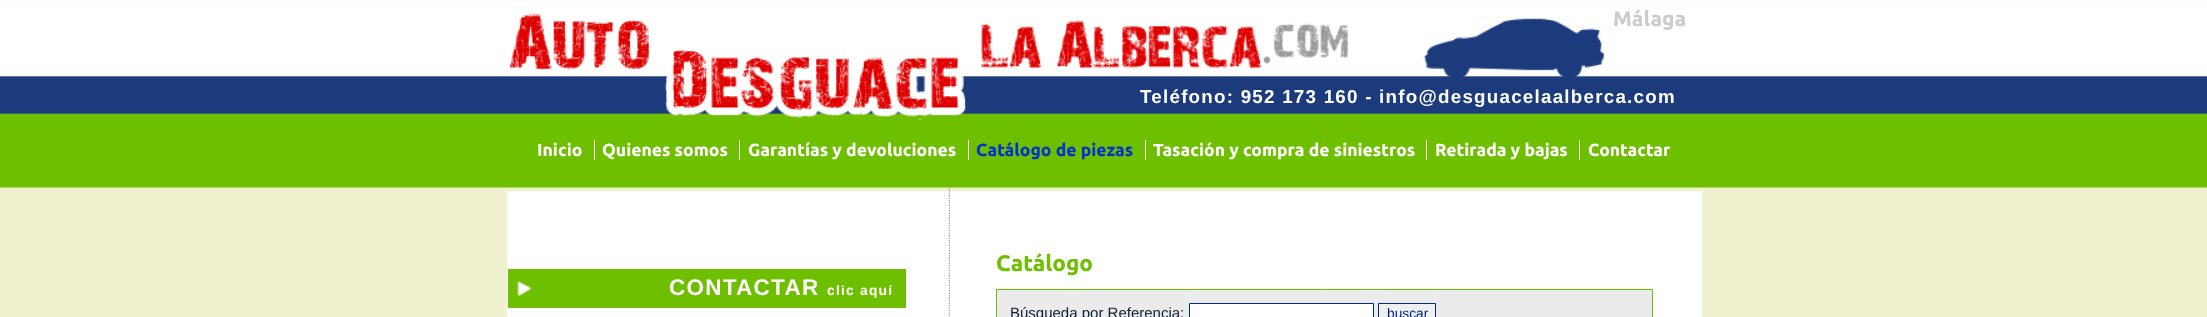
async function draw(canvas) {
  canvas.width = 2207
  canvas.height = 317
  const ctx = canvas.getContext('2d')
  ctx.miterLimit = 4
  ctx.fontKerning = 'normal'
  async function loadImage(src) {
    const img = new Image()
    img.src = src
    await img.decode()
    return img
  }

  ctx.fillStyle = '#f0f1ce'
  ctx.fillRect(0, 0, 2207, 317)
  ctx.fillStyle = '#fff'
  ctx.fillRect(507, 191, 1195, 126)
  ctx.drawImage(await loadImage('image0.png'), 0, 0, 2207, 192)
  ctx.font = 'bold 21px Ubuntu'
  ctx.fillStyle = '#ccc'
  ctx.fillText('Málaga', 1613, 26)
  ctx.drawImage(await loadImage('image1.png'), 509, 13, 1173, 108)
  ctx.letterSpacing = '1.25px'
  ctx.font = 'bold 18.75px Liberation Sans'
  ctx.fillStyle = '#fff'
  ctx.fillText('Teléfono: 952 173 160 - info@desguacelaalberca.com', 1140, 103)
  ctx.letterSpacing = '0px'
  ctx.font = 'bold 17.5px Ubuntu'
  ctx.fillText('Inicio', 537, 156)
  ctx.fillText('Quienes somos', 602, 156)
  ctx.fillRect(594, 140, 1, 20)
  ctx.fillText('Garantías y devoluciones', 748, 156)
  ctx.fillRect(739, 140, 1, 20)
  ctx.fillStyle = '#03c'
  ctx.fillText('Catálogo de piezas', 976, 156)
  ctx.fillStyle = '#fff'
  ctx.fillRect(968, 140, 1, 20)
  ctx.fillText('Tasación y compra de siniestros', 1153, 156)
  ctx.fillRect(1145, 140, 1, 20)
  ctx.fillText('Retirada y bajas', 1435, 156)
  ctx.fillRect(1426, 140, 1, 20)
  ctx.fillText('Contactar', 1588, 156)
  ctx.fillRect(1579, 140, 1, 20)
  ctx.drawImage(await loadImage('image2.png'), 948, 187, 2, 130)
  ctx.fillStyle = '#6dbf00'
  ctx.fillRect(508, 269, 398, 39)
  ctx.drawImage(await loadImage('image3.png'), 517, 281, 15, 16)
  ctx.letterSpacing = '1.25px'
  ctx.font = 'bold 22.5px Liberation Sans'
  ctx.fillStyle = '#fff'
  ctx.fillText('CONTACTAR', 669, 295)
  ctx.font = 'bold 13.75px Liberation Sans'
  ctx.fillText('clic aquí', 827, 295)
  ctx.letterSpacing = '0px'
  ctx.font = 'bold 22.5px Ubuntu'
  ctx.fillStyle = '#6dbf00'
  ctx.fillText('Catálogo', 996, 271)
  ctx.fillStyle = '#ebebeb'
  ctx.beginPath()
  ctx.rect(996.5, 289.5, 656, 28)
  ctx.fill()
  ctx.strokeStyle = '#6dbf00'
  ctx.stroke()
  ctx.font = '15px Liberation Sans'
  ctx.fillStyle = '#0e2032'
  ctx.fillText('Búsqueda por Referencia:', 1010, 318)
  ctx.fillStyle = '#fff'
  ctx.beginPath()
  ctx.rect(1189.5, 303.5, 184, 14)
  ctx.fill()
  ctx.strokeStyle = '#032880'
  ctx.stroke()
  ctx.fillStyle = '#efefef'
  ctx.beginPath()
  ctx.rect(1378.5, 303.5, 57, 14)
  ctx.fill()
  ctx.stroke()
  ctx.font = '13.75px Liberation Sans'
  ctx.fillStyle = '#00247d'
  ctx.fillText('buscar', 1387, 318)
}

draw(document.querySelector('canvas'))
